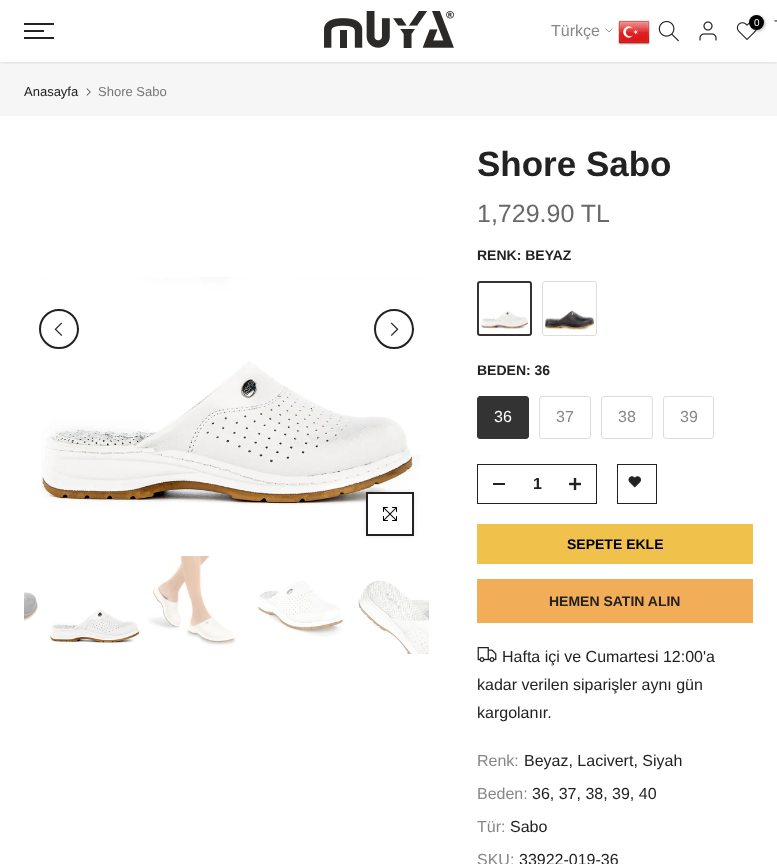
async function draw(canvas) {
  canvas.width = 777
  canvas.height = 864
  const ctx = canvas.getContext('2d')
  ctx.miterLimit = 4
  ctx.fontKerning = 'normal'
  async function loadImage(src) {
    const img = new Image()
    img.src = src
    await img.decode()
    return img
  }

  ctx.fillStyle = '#fff'
  ctx.fillRect(0, 0, 777, 864)
  ctx.fillStyle = '#f6f6f6'
  ctx.fillRect(0, 62, 777, 54)
  ctx.save()
  ctx.beginPath()
  ctx.rect(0, 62, 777, 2)
  ctx.clip()
  ctx.fillStyle = '#0000001a'
  ctx.filter = 'blur(1.5px)'
  ctx.beginPath()
  ctx.rect(0, 1, 777, 62)
  ctx.fill()
  ctx.filter = 'none'
  ctx.restore()
  ctx.fillStyle = '#222'
  ctx.fillRect(24, 23, 30, 2)
  ctx.fillRect(24, 30, 20, 2)
  ctx.fillRect(24, 37, 30, 2)
  ctx.drawImage(await loadImage('image0.png'), 324, 11, 130, 37)
  ctx.font = '16px Liberation Sans'
  ctx.fillStyle = '#878787'
  ctx.fillText('Türkçe', 551, 36)
  ctx.beginPath()
  ctx.moveTo(612, 29)
  ctx.lineTo(609, 32)
  ctx.lineTo(606, 29)
  ctx.strokeStyle = '#878787'
  ctx.lineWidth = 0.8
  ctx.lineCap = 'square'
  ctx.stroke()
  ctx.drawImage(await loadImage('image1.png'), 618, 20, 32, 25)
  ctx.drawImage(await loadImage('image2.png'), 658, 20, 21, 22)
  ctx.drawImage(await loadImage('image3.png'), 699, 21, 18, 20)
  ctx.drawImage(await loadImage('image4.png'), 736, 22, 21, 18)
  ctx.fillStyle = '#0000004d'
  ctx.filter = 'blur(1.5px)'
  ctx.beginPath()
  ctx.roundRect(750, 16, 15, 15, 7.5)
  ctx.fill()
  ctx.filter = 'none'
  ctx.fillStyle = '#000'
  ctx.beginPath()
  ctx.arc(756.5, 22.5, 7.5, 0, 2 * Math.PI)
  ctx.fill()
  ctx.font = '10px Liberation Sans'
  ctx.fillStyle = '#fff'
  ctx.fillText('0', 754, 26)
  ctx.drawImage(await loadImage('image5.png'), 774, 20, 3, 2)
  ctx.font = '13px Liberation Sans'
  ctx.fillStyle = '#222'
  ctx.fillText('Anasayfa', 24, 96)
  ctx.drawImage(await loadImage('image6.png'), 86, 88, 5, 8)
  ctx.fillStyle = '#777'
  ctx.fillText('Shore Sabo', 98, 96)
  ctx.drawImage(await loadImage('image7.png'), 41, 277, 380, 228)
  ctx.beginPath()
  ctx.arc(59, 329, 19, 0, 2 * Math.PI)
  ctx.strokeStyle = '#222'
  ctx.lineWidth = 2
  ctx.stroke()
  ctx.drawImage(await loadImage('image8.png'), 54, 322, 9, 14)
  ctx.beginPath()
  ctx.arc(394, 329, 19, 0, 2 * Math.PI)
  ctx.stroke()
  ctx.drawImage(await loadImage('image9.png'), 390, 322, 9, 14)
  ctx.fillStyle = '#00000017'
  ctx.filter = 'blur(2.5px)'
  ctx.beginPath()
  ctx.rect(366, 492, 48, 44)
  ctx.fill()
  ctx.filter = 'none'
  ctx.fillStyle = '#fff'
  ctx.beginPath()
  ctx.rect(367, 493, 46, 42)
  ctx.fill()
  ctx.stroke()
  ctx.drawImage(await loadImage('image10.png'), 383, 507, 14, 14)
  ctx.drawImage(await loadImage('image11.png'), 24, 592, 17, 29)
  ctx.drawImage(await loadImage('image12.png'), 49, 608, 94, 36)
  ctx.drawImage(await loadImage('image13.png'), 148, 556, 88, 90)
  ctx.drawImage(await loadImage('image14.png'), 258, 581, 85, 56)
  ctx.drawImage(await loadImage('image15.png'), 358, 580, 71, 74)
  ctx.font = 'bold 35px Liberation Sans'
  ctx.fillStyle = '#222'
  ctx.fillText('Shore Sabo', 477, 176)
  ctx.font = '25px Liberation Sans'
  ctx.fillStyle = '#696969'
  ctx.fillText('1,729.90 TL', 477, 222)
  ctx.font = 'bold 14px Liberation Sans'
  ctx.fillStyle = '#222'
  ctx.fillText('RENK: BEYAZ', 477, 260)
  ctx.drawImage(await loadImage('image16.png'), 481, 310, 47, 19)
  ctx.beginPath()
  ctx.roundRect(478, 282, 53, 53, 2)
  ctx.strokeStyle = '#333'
  ctx.stroke()
  ctx.drawImage(await loadImage('image17.png'), 543, 282, 53, 53)
  ctx.beginPath()
  ctx.roundRect(544, 283, 51, 51, 1)
  ctx.strokeStyle = '#fff'
  ctx.stroke()
  ctx.beginPath()
  ctx.roundRect(542.5, 281.5, 54, 54, 2.5)
  ctx.strokeStyle = '#ddd'
  ctx.lineWidth = 1
  ctx.stroke()
  ctx.fillText('BEDEN: 36', 477, 375)
  ctx.fillStyle = '#333'
  ctx.beginPath()
  ctx.roundRect(477.5, 396.5, 51, 42, 2.5)
  ctx.fill()
  ctx.strokeStyle = '#333'
  ctx.stroke()
  ctx.font = '16px Liberation Sans'
  ctx.fillStyle = '#fff'
  ctx.fillText('36', 494, 422)
  ctx.beginPath()
  ctx.roundRect(539.5, 396.5, 51, 42, 2.5)
  ctx.strokeStyle = '#ddd'
  ctx.stroke()
  ctx.fillStyle = '#878787'
  ctx.fillText('37', 556, 422)
  ctx.beginPath()
  ctx.roundRect(601.5, 396.5, 51, 42, 2.5)
  ctx.stroke()
  ctx.fillText('38', 618, 422)
  ctx.beginPath()
  ctx.roundRect(663.5, 396.5, 50, 42, 2.5)
  ctx.stroke()
  ctx.fillText('39', 680, 422)
  ctx.strokeStyle = '#222'
  ctx.strokeRect(477.5, 464.5, 119, 39)
  ctx.fillStyle = '#222'
  ctx.fillRect(493, 483, 12, 2)
  ctx.font = 'bold 16px Liberation Sans'
  ctx.fillText('1', 533, 489)
  ctx.drawImage(await loadImage('image18.png'), 569, 478, 12, 12)
  ctx.strokeRect(617.5, 464.5, 39, 39)
  ctx.drawImage(await loadImage('image19.png'), 628, 476, 13, 12)
  ctx.fillStyle = '#f0c14b'
  ctx.fillRect(477, 524, 276, 40)
  ctx.font = 'bold 14px Liberation Sans'
  ctx.fillStyle = '#000'
  ctx.fillText('SEPETE EKLE', 567, 549)
  ctx.fillStyle = '#f2ad58'
  ctx.fillRect(477, 579, 276, 44)
  ctx.fillStyle = '#222'
  ctx.fillText('HEMEN SATIN ALIN', 549, 606)
  ctx.drawImage(await loadImage('image20.png'), 477, 647, 20, 15)
  ctx.font = '16px Liberation Sans'
  ctx.fillText('Hafta içi ve Cumartesi 12:00\'a', 502, 662)
  ctx.fillText('kadar verilen siparişler aynı gün', 477, 690)
  ctx.fillText('kargolanır.', 477, 718)
  ctx.fillStyle = '#878787'
  ctx.fillText('Renk:', 477, 766)
  ctx.fillStyle = '#222'
  ctx.fillText('Beyaz, Lacivert, Siyah', 524, 766)
  ctx.fillStyle = '#878787'
  ctx.fillText('Beden:', 477, 799)
  ctx.fillStyle = '#222'
  ctx.fillText('36, 37, 38, 39, 40', 532, 799)
  ctx.fillStyle = '#878787'
  ctx.fillText('Tür:', 477, 832)
  ctx.fillStyle = '#222'
  ctx.fillText('Sabo', 510, 832)
  ctx.fillStyle = '#878787'
  ctx.fillText('SKU:', 477, 865)
  ctx.fillStyle = '#222'
  ctx.fillText('33922-019-36', 519, 865)
}

draw(document.querySelector('canvas'))
